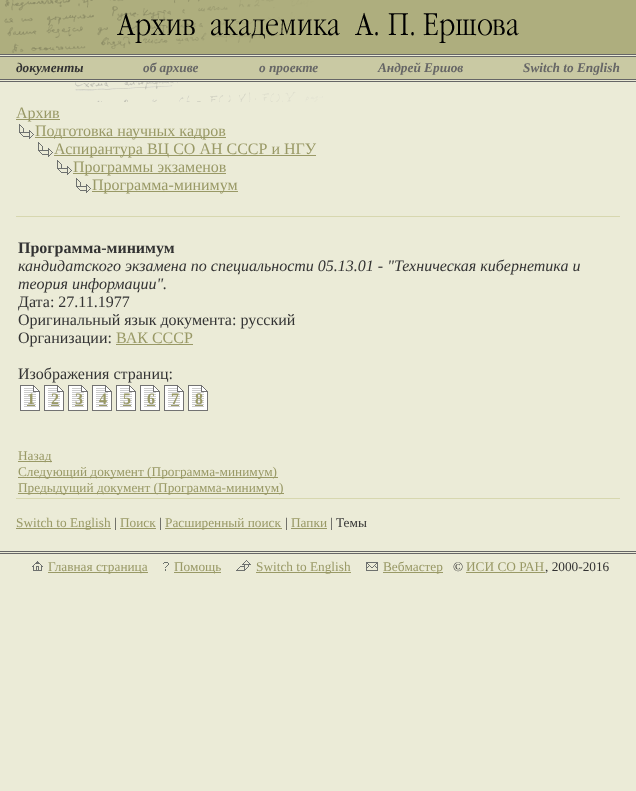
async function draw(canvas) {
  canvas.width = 636
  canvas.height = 791
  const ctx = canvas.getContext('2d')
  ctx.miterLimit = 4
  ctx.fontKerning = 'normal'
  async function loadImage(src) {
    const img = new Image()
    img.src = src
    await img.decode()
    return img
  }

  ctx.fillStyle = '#ebebd7'
  ctx.fillRect(0, 0, 636, 791)
  ctx.drawImage(await loadImage('image0.png'), 0, 0, 636, 54)
  ctx.drawImage(await loadImage('image1.png'), 117, 12, 402, 31)
  ctx.fillStyle = '#666'
  ctx.fillRect(0, 54, 636, 1)
  ctx.fillRect(0, 56, 636, 1)
  ctx.fillStyle = '#c9c9a3'
  ctx.fillRect(0, 57, 636, 22)
  ctx.font = 'italic bold 13.3px Liberation Serif'
  ctx.fillStyle = '#333'
  ctx.fillText('документы', 16, 72)
  ctx.fillStyle = '#666'
  ctx.fillText('об архиве', 143, 72)
  ctx.fillText('о проекте', 259, 72)
  ctx.fillText('Андрей Ершов', 378, 72)
  ctx.fillText('Switch to English', 523, 72)
  ctx.fillRect(0, 79, 636, 1)
  ctx.fillRect(0, 81, 636, 1)
  ctx.drawImage(await loadImage('image2.png'), 75, 82, 248, 20)
  ctx.fillStyle = '#996'
  ctx.fillRect(16, 119, 44, 1)
  ctx.font = '16px Liberation Serif'
  ctx.fillText('Архив', 16, 118)
  ctx.drawImage(await loadImage('image3.png'), 19, 124, 15, 15)
  ctx.fillRect(35, 137, 191, 1)
  ctx.fillText('Подготовка научных кадров', 35, 136)
  ctx.drawImage(await loadImage('image3.png'), 38, 142, 15, 15)
  ctx.fillRect(54, 155, 262, 1)
  ctx.fillText('Аспирантура ВЦ СО АН СССР и НГУ', 54, 154)
  ctx.drawImage(await loadImage('image3.png'), 57, 160, 15, 15)
  ctx.fillRect(73, 173, 153, 1)
  ctx.fillText('Программы экзаменов', 73, 172)
  ctx.drawImage(await loadImage('image3.png'), 76, 178, 15, 15)
  ctx.fillRect(92, 191, 146, 1)
  ctx.fillText('Программа-минимум', 92, 190)
  ctx.fillStyle = '#d7d7af'
  ctx.fillRect(16, 216, 604, 1)
  ctx.font = 'bold 16px Liberation Serif'
  ctx.fillStyle = '#333'
  ctx.fillText('Программа-минимум', 18, 253)
  ctx.font = 'italic 16px Liberation Serif'
  ctx.fillText('кандидатского экзамена по специальности 05.13.01 - "Техническая кибернетика и', 18, 271)
  ctx.fillText('теория информации".', 18, 289)
  ctx.font = '16px Liberation Serif'
  ctx.fillText('Дата: 27.11.1977', 18, 307)
  ctx.fillText('Оригинальный язык документа: русский', 18, 325)
  ctx.fillText('Организации:', 18, 343)
  ctx.fillStyle = '#996'
  ctx.fillText('ВАК СССР', 116, 343)
  ctx.fillRect(116, 344, 77, 1)
  ctx.fillStyle = '#333'
  ctx.fillText('Изображения страниц:', 18, 379)
  ctx.drawImage(await loadImage('image4.png'), 20, 385, 188, 26)
  ctx.font = 'bold 16px Liberation Serif'
  ctx.fillStyle = '#996'
  ctx.fillText('1', 27, 404)
  ctx.fillRect(27, 405, 8, 1)
  ctx.fillText('2', 51, 404)
  ctx.fillRect(51, 405, 8, 1)
  ctx.fillText('3', 75, 404)
  ctx.fillRect(75, 405, 8, 1)
  ctx.fillText('4', 99, 404)
  ctx.fillRect(99, 405, 8, 1)
  ctx.fillText('5', 123, 404)
  ctx.fillRect(123, 405, 8, 1)
  ctx.fillText('6', 147, 404)
  ctx.fillRect(147, 405, 8, 1)
  ctx.fillText('7', 171, 404)
  ctx.fillRect(171, 405, 8, 1)
  ctx.fillText('8', 195, 404)
  ctx.fillRect(195, 405, 8, 1)
  ctx.fillRect(18, 461, 34, 1)
  ctx.font = '13.3px Liberation Serif'
  ctx.fillText('Назад', 18, 460)
  ctx.fillRect(18, 477, 260, 1)
  ctx.fillText('Следующий документ (Программа-минимум)', 18, 476)
  ctx.fillRect(18, 493, 266, 1)
  ctx.fillText('Предыдущий документ (Программа-минимум)', 18, 492)
  ctx.fillStyle = '#d7d7af'
  ctx.fillRect(16, 498, 604, 1)
  ctx.fillStyle = '#996'
  ctx.fillRect(16, 528, 95, 1)
  ctx.fillText('Switch to English', 16, 527)
  ctx.fillStyle = '#333'
  ctx.fillText('|', 114, 527)
  ctx.fillStyle = '#996'
  ctx.fillText('Поиск', 120, 527)
  ctx.fillRect(120, 528, 36, 1)
  ctx.fillStyle = '#333'
  ctx.fillText('|', 159, 527)
  ctx.fillStyle = '#996'
  ctx.fillRect(165, 528, 117, 1)
  ctx.fillText('Расширенный поиск', 165, 527)
  ctx.fillStyle = '#333'
  ctx.fillText('|', 285, 527)
  ctx.fillStyle = '#996'
  ctx.fillText('Папки', 291, 527)
  ctx.fillRect(291, 528, 36, 1)
  ctx.fillStyle = '#333'
  ctx.fillText('| Темы', 330, 527)
  ctx.fillStyle = '#666'
  ctx.fillRect(0, 551, 636, 1)
  ctx.fillRect(0, 553, 636, 1)
  ctx.drawImage(await loadImage('image5.png'), 32, 561, 11, 10)
  ctx.fillStyle = '#996'
  ctx.fillRect(48, 572, 100, 1)
  ctx.fillText('Главная страница', 48, 571)
  ctx.drawImage(await loadImage('image6.png'), 163, 562, 6, 9)
  ctx.fillRect(174, 572, 47, 1)
  ctx.fillText('Помощь', 174, 571)
  ctx.drawImage(await loadImage('image7.png'), 236, 560, 15, 11)
  ctx.fillRect(256, 572, 95, 1)
  ctx.fillText('Switch to English', 256, 571)
  ctx.drawImage(await loadImage('image8.png'), 366, 562, 12, 9)
  ctx.fillRect(383, 572, 60, 1)
  ctx.fillText('Вебмастер', 383, 571)
  ctx.fillStyle = '#333'
  ctx.fillText('©', 453, 571)
  ctx.fillStyle = '#996'
  ctx.fillText('ИСИ СО РАН', 466, 571)
  ctx.fillStyle = '#333'
  ctx.fillText(', 2000-2016', 545, 571)
  ctx.fillStyle = '#996'
  ctx.fillRect(466, 572, 79, 1)
}

draw(document.querySelector('canvas'))
